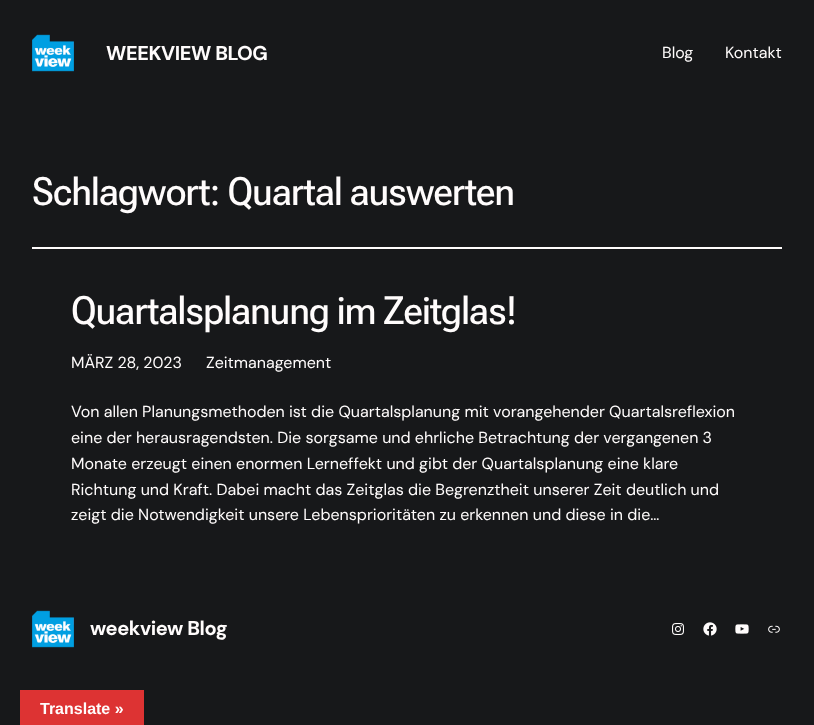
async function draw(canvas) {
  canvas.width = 814
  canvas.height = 725
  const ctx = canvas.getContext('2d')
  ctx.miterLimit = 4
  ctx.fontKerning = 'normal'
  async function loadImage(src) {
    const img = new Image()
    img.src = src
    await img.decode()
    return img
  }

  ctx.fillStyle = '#17181a'
  ctx.fillRect(0, 0, 814, 725)
  ctx.drawImage(await loadImage('image0.png'), 32, 34, 42, 38)
  ctx.letterSpacing = '-0.4px'
  ctx.font = 'bold 20px DM Sans'
  ctx.fillStyle = '#fffcfc'
  ctx.fillText('WEEKVIEW BLOG', 106, 60)
  ctx.letterSpacing = '0px'
  ctx.font = '16px DM Sans'
  ctx.fillText('Blog', 662, 58)
  ctx.fillText('Kontakt', 725, 58)
  ctx.letterSpacing = '-0.75px'
  ctx.font = '500 39px Roboto Flex'
  ctx.fillText('Schlagwort: Quartal auswerten', 32, 205)
  ctx.fillRect(32, 247, 750, 2)
  ctx.fillText('Quartalsplanung im Zeitglas!', 71, 324)
  ctx.letterSpacing = '0px'
  ctx.font = '16px DM Sans'
  ctx.fillText('MÄRZ 28, 2023', 71, 368)
  ctx.fillText('Zeitmanagement', 206, 368)
  ctx.font = '16.05px DM Sans'
  ctx.fillText('Von allen Planungsmethoden ist die Quartalsplanung mit vorangehender Quartalsreflexion', 71, 417)
  ctx.fillText('eine der herausragendsten. Die sorgsame und ehrliche Betrachtung der vergangenen 3', 71, 443)
  ctx.fillText('Monate erzeugt einen enormen Lerneffekt und gibt der Quartalsplanung eine klare', 71, 469)
  ctx.fillText('Richtung und Kraft. Dabei macht das Zeitglas die Begrenztheit unserer Zeit deutlich und', 71, 495)
  ctx.fillText('zeigt die Notwendigkeit unsere Lebensprioritäten zu erkennen und diese in die…', 71, 520)
  ctx.drawImage(await loadImage('image0.png'), 32, 610, 42, 38)
  ctx.letterSpacing = '-0.4px'
  ctx.font = 'bold 20px DM Sans'
  ctx.fillText('weekview Blog', 90, 635)
  ctx.drawImage(await loadImage('image1.png'), 672, 623, 12, 12)
  ctx.drawImage(await loadImage('image2.png'), 703, 622, 14, 14)
  ctx.drawImage(await loadImage('image3.png'), 735, 624, 14, 10)
  ctx.drawImage(await loadImage('image4.png'), 768, 625, 12, 8)
  ctx.fillStyle = '#d33'
  ctx.fillRect(20, 690, 124, 35)
  ctx.letterSpacing = '0px'
  ctx.font = 'bold 16px Liberation Sans'
  ctx.fillStyle = '#fffcfc'
  ctx.fillText('Translate »', 40, 714)
}

draw(document.querySelector('canvas'))
